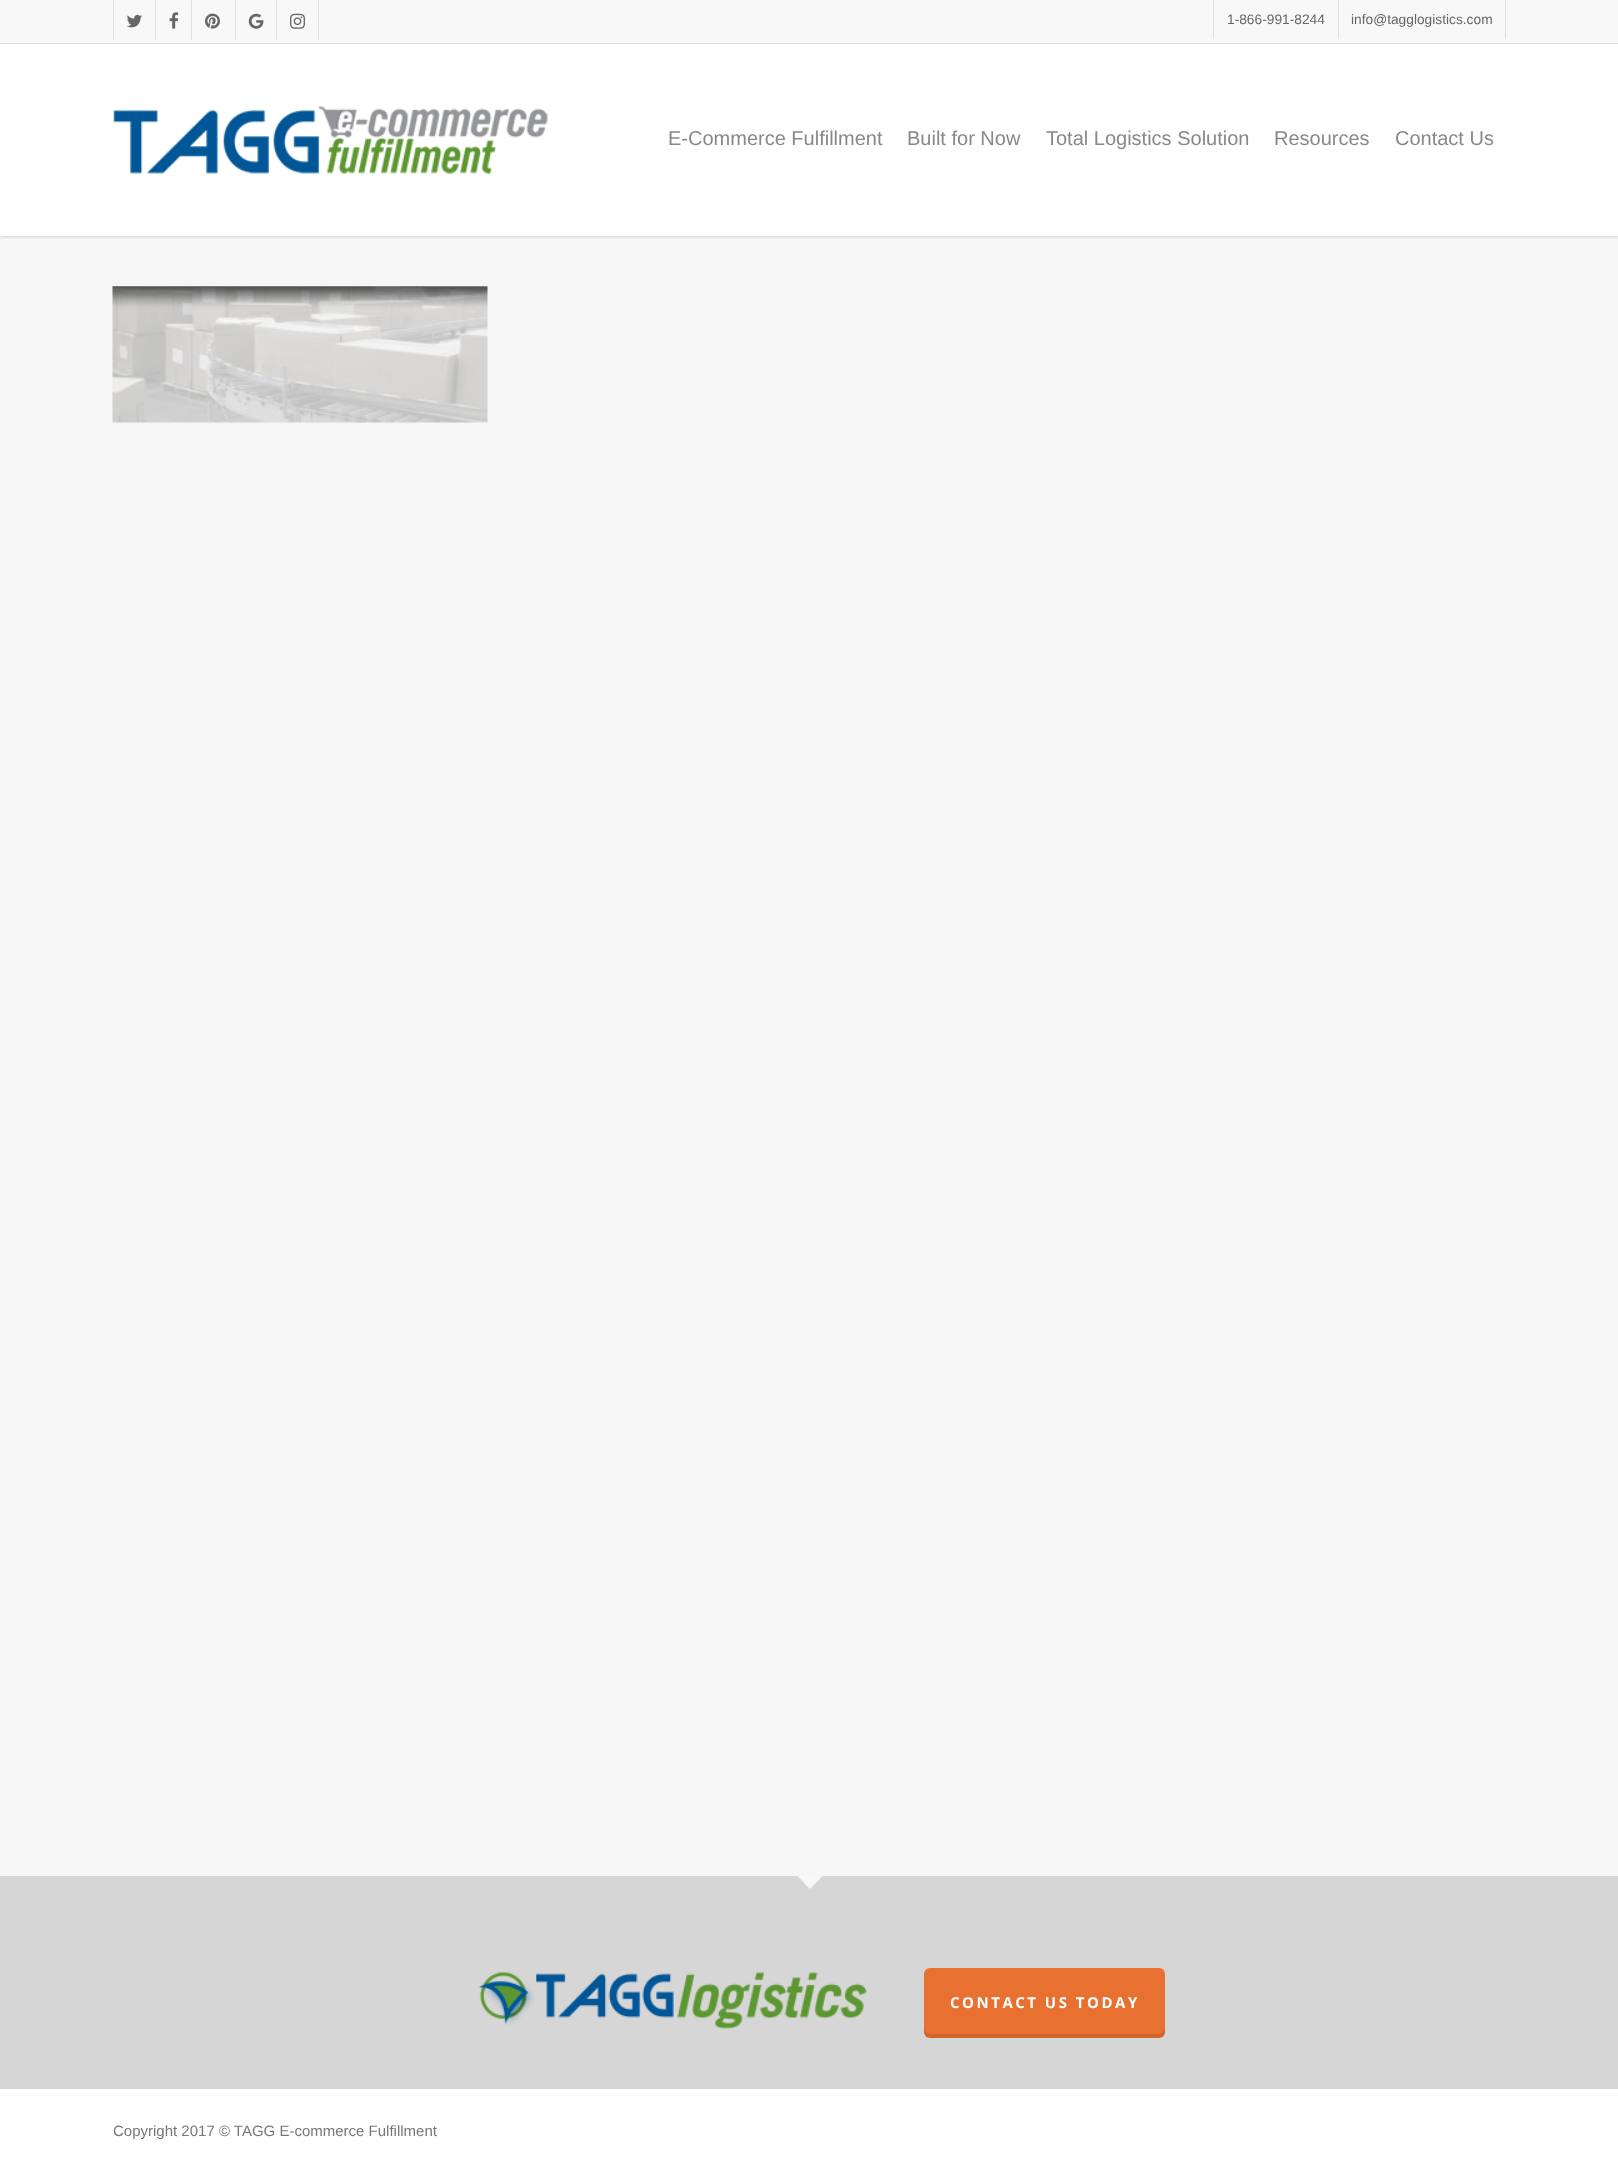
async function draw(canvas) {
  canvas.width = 1618
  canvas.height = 2169
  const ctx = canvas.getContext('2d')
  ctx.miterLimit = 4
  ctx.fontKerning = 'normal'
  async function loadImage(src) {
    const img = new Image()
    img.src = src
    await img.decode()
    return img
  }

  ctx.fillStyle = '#fff'
  ctx.fillRect(0, 0, 1618, 2169)
  ctx.fillStyle = '#f6f6f6'
  ctx.fillRect(0, 236, 1618, 1640)
  ctx.save()
  ctx.beginPath()
  ctx.rect(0, 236, 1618, 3)
  ctx.clip()
  ctx.fillStyle = '#00000038'
  ctx.filter = 'blur(2px)'
  ctx.beginPath()
  ctx.rect(0, 0, 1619, 236)
  ctx.fill()
  ctx.filter = 'none'
  ctx.restore()
  ctx.fillStyle = '#f8f8f8'
  ctx.fillRect(0, 0, 1618, 43)
  ctx.fillStyle = '#dfdfdf'
  ctx.fillRect(0, 43, 1618, 1)
  ctx.fillRect(113, 0, 1, 40)
  ctx.drawImage(await loadImage('image0.png'), 127, 14, 15, 14)
  ctx.fillRect(155, 0, 1, 40)
  ctx.drawImage(await loadImage('image1.png'), 169, 12, 10, 17)
  ctx.fillRect(191, 0, 1, 40)
  ctx.drawImage(await loadImage('image2.png'), 205, 13, 15, 16)
  ctx.fillRect(235, 0, 1, 40)
  ctx.drawImage(await loadImage('image3.png'), 248, 13, 16, 16)
  ctx.fillRect(318, 0, 1, 40)
  ctx.fillRect(276, 0, 1, 40)
  ctx.drawImage(await loadImage('image4.png'), 290, 13, 15, 16)
  ctx.fillRect(1213, 0, 1, 39)
  ctx.font = '13.75px Liberation Sans'
  ctx.fillStyle = '#666'
  ctx.fillText('1-866-991-8244', 1227, 24)
  ctx.fillStyle = '#dfdfdf'
  ctx.fillRect(1505, 0, 1, 39)
  ctx.fillRect(1338, 0, 1, 39)
  ctx.fillStyle = '#666'
  ctx.fillText('info@tagglogistics.com', 1351, 24)
  ctx.drawImage(await loadImage('image5.png'), 113, 106, 435, 68)
  ctx.font = '20px Liberation Sans'
  ctx.fillStyle = '#888'
  ctx.fillText('E-Commerce Fulfillment', 668, 145)
  ctx.fillText('Built for Now', 907, 145)
  ctx.fillText('Total Logistics Solution', 1046, 145)
  ctx.fillText('Resources', 1274, 145)
  ctx.fillText('Contact Us', 1395, 145)
  ctx.drawImage(await loadImage('image6.png'), 112, 286, 376, 137)
  ctx.fillStyle = '#d6d6d6'
  ctx.fillRect(0, 1876, 1618, 213)
  ctx.fillStyle = '#f8f8f8'
  ctx.beginPath()
  ctx.moveTo(797.5, 1876)
  ctx.lineTo(822.5, 1876)
  ctx.lineTo(810, 1889)
  ctx.closePath()
  ctx.fill()
  ctx.drawImage(await loadImage('image7.png'), 478, 1972, 389, 57)
  ctx.fillStyle = '#e87030'
  ctx.beginPath()
  ctx.roundRect(924, 1968, 241, 70, 6)
  ctx.fill()
  ctx.fillStyle = '#0000001a'
  ctx.beginPath()
  ctx.moveTo(924, 2028)
  ctx.lineTo(924, 2032)
  ctx.bezierCurveTo(924, 2035, 927, 2038, 930, 2038)
  ctx.lineTo(1159, 2038)
  ctx.bezierCurveTo(1162, 2038, 1165, 2035, 1165, 2032)
  ctx.lineTo(1165, 2028)
  ctx.bezierCurveTo(1165, 2031, 1162, 2034, 1159, 2034)
  ctx.lineTo(930, 2034)
  ctx.bezierCurveTo(927, 2034, 924, 2031, 924, 2028)
  ctx.closePath()
  ctx.fill()
  ctx.letterSpacing = '2.5px'
  ctx.font = 'bold 15px Open Sans'
  ctx.fillStyle = '#fff'
  ctx.fillText('CONTACT US TODAY', 950, 2008)
  ctx.letterSpacing = '0px'
  ctx.font = '15px Liberation Sans'
  ctx.fillStyle = '#777'
  ctx.fillText('Copyright 2017 © TAGG E-commerce Fulfillment', 113, 2136)
}

draw(document.querySelector('canvas'))
